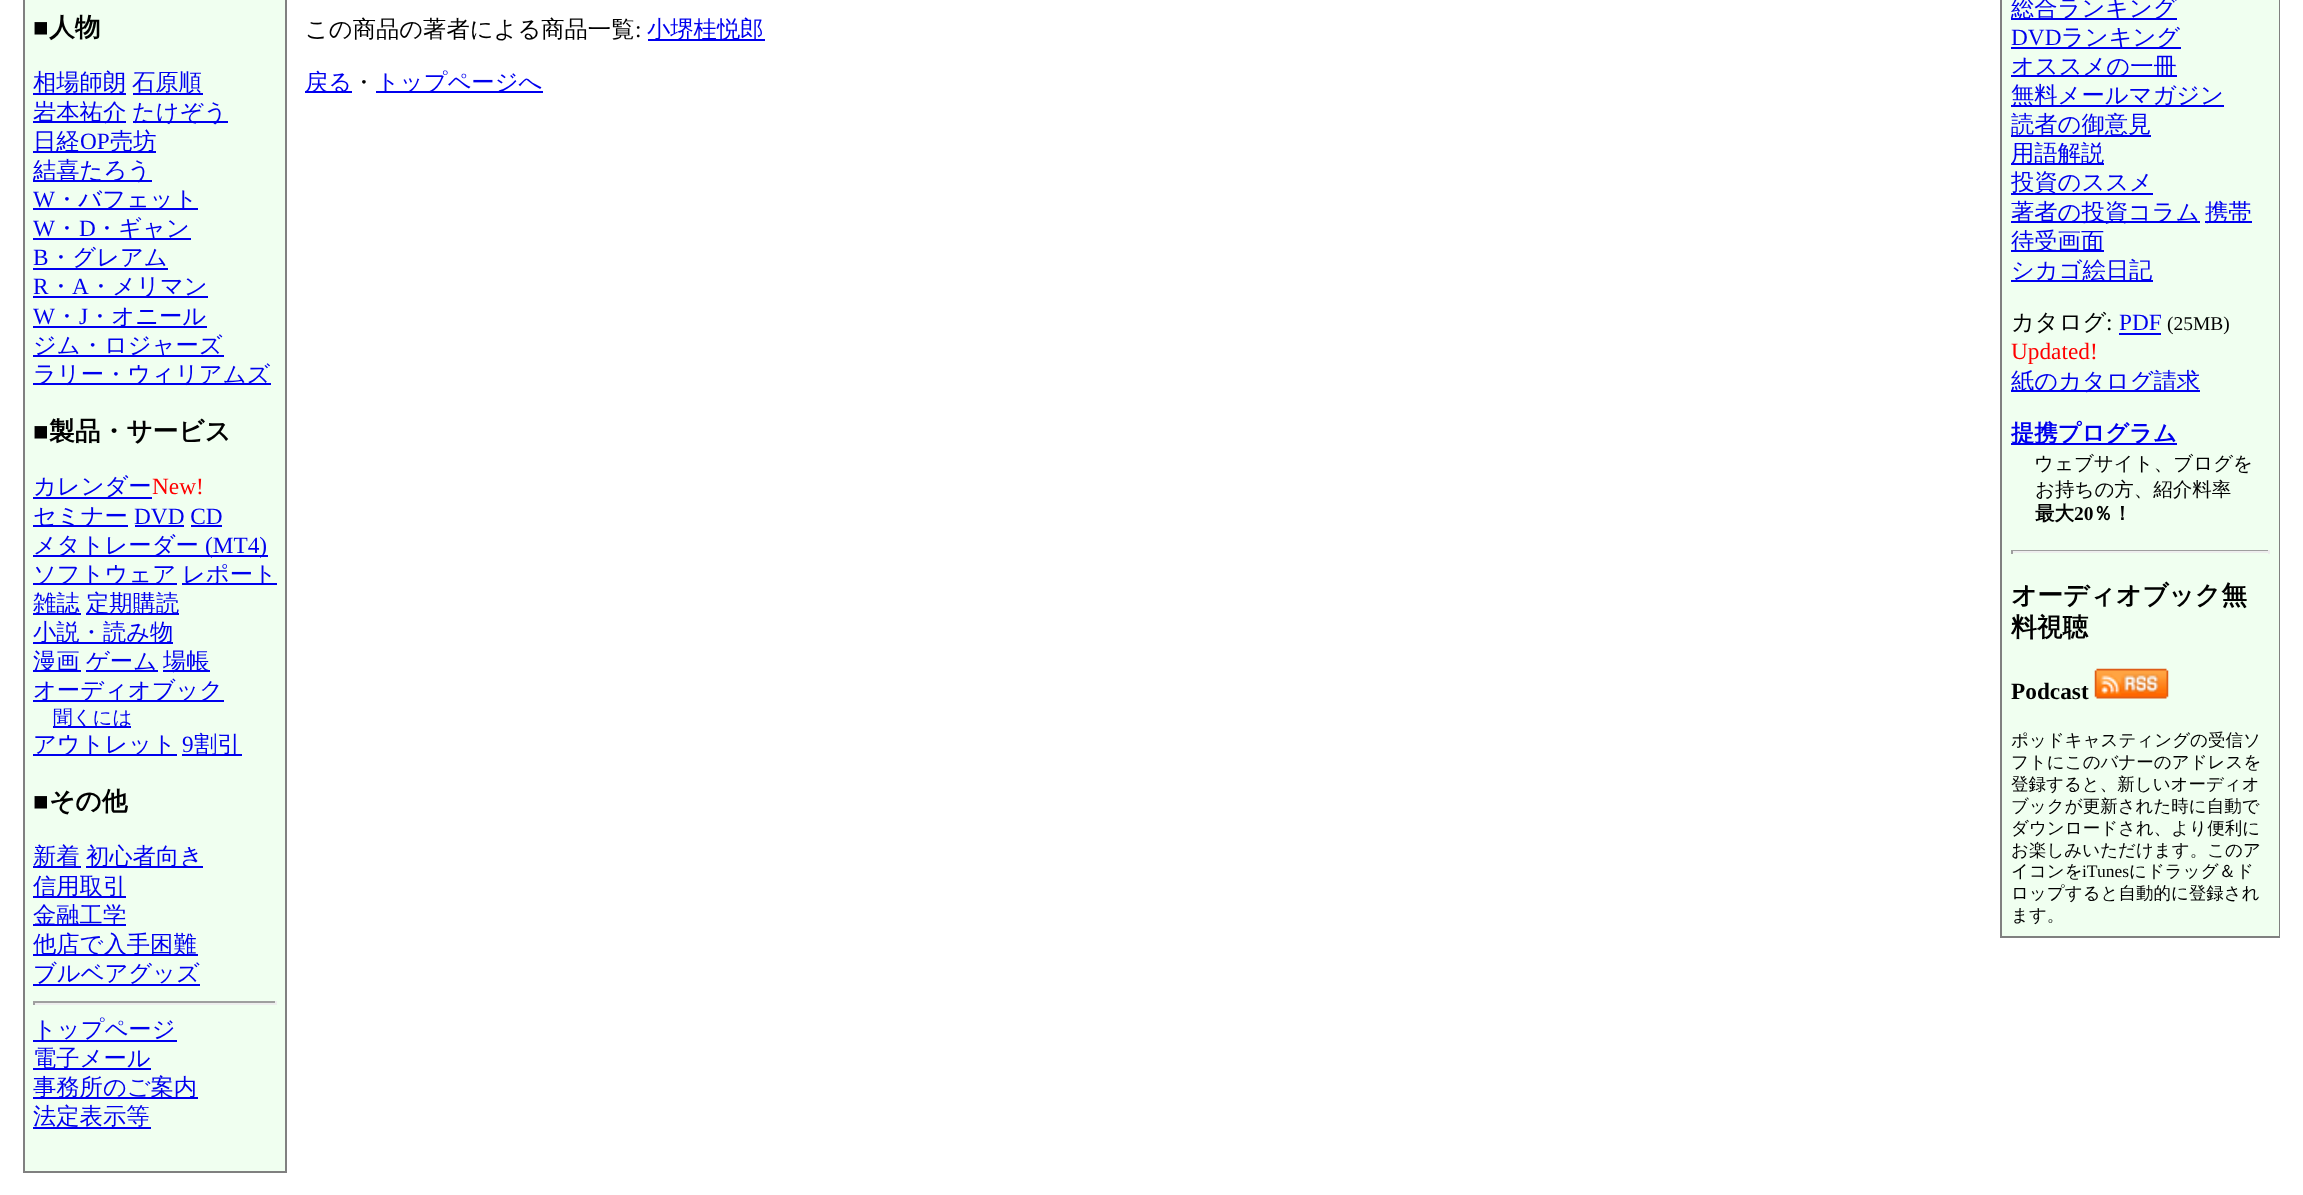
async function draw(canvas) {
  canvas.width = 2303
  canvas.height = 1195
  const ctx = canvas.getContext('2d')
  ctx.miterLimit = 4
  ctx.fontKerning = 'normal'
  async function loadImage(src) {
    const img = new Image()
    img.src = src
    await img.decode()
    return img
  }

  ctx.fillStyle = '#fff'
  ctx.fillRect(0, 0, 2303, 1195)
  ctx.fillStyle = '#808080'
  ctx.fillRect(23, 0, 264, 1173)
  ctx.fillStyle = '#f0fff0'
  ctx.fillRect(25, 0, 260, 1171)
  ctx.font = 'bold 25.75px Liberation Serif'
  ctx.fillStyle = '#000'
  ctx.fillText('■', 33, 36)
  ctx.font = 'bold 25.75px WenQuanYi Zen Hei'
  ctx.fillText('人物', 49, 36)
  ctx.fillStyle = '#00e'
  ctx.fillRect(33, 93, 93, 2)
  ctx.font = '500 23.3px WenQuanYi Zen Hei'
  ctx.fillText('相場師朗', 33, 90)
  ctx.fillRect(133, 93, 70, 2)
  ctx.fillText('石原順', 132, 90)
  ctx.fillRect(33, 121, 93, 2)
  ctx.fillText('岩本祐介', 33, 120)
  ctx.fillRect(133, 121, 95, 2)
  ctx.fillText('たけぞう', 132, 120)
  ctx.fillRect(33, 151, 123, 2)
  ctx.fillText('日経', 33, 149)
  ctx.font = '23.3px Liberation Serif'
  ctx.fillText('OP', 80, 149)
  ctx.font = '500 23.3px WenQuanYi Zen Hei'
  ctx.fillText('売坊', 110, 149)
  ctx.fillRect(33, 180, 119, 2)
  ctx.fillText('結喜たろう', 33, 178)
  ctx.font = '23.3px Liberation Serif'
  ctx.fillText('W', 33, 207)
  ctx.fillRect(33, 208, 165, 2)
  ctx.font = '500 23.3px WenQuanYi Zen Hei'
  ctx.fillText('・バフェット', 55, 207)
  ctx.font = '23.3px Liberation Serif'
  ctx.fillText('W', 33, 236)
  ctx.fillRect(33, 238, 158, 2)
  ctx.font = '500 23.3px WenQuanYi Zen Hei'
  ctx.fillText('・', 55, 236)
  ctx.font = '23.3px Liberation Serif'
  ctx.fillText('D', 79, 236)
  ctx.font = '500 23.3px WenQuanYi Zen Hei'
  ctx.fillText('・ギャン', 95, 236)
  ctx.font = '23.3px Liberation Serif'
  ctx.fillText('B', 33, 265)
  ctx.fillRect(33, 268, 135, 2)
  ctx.font = '500 23.3px WenQuanYi Zen Hei'
  ctx.fillText('・グレアム', 49, 265)
  ctx.font = '23.3px Liberation Serif'
  ctx.fillText('R', 33, 294)
  ctx.font = '500 23.3px WenQuanYi Zen Hei'
  ctx.fillText('・', 49, 294)
  ctx.font = '23.3px Liberation Serif'
  ctx.fillText('A', 72, 294)
  ctx.fillRect(33, 296, 175, 2)
  ctx.font = '500 23.3px WenQuanYi Zen Hei'
  ctx.fillText('・メリマン', 89, 294)
  ctx.font = '23.3px Liberation Serif'
  ctx.fillText('W', 33, 324)
  ctx.font = '500 23.3px WenQuanYi Zen Hei'
  ctx.fillText('・', 55, 324)
  ctx.font = '23.3px Liberation Serif'
  ctx.fillText('J', 79, 324)
  ctx.fillRect(33, 326, 174, 2)
  ctx.font = '500 23.3px WenQuanYi Zen Hei'
  ctx.fillText('・オニール', 88, 324)
  ctx.fillRect(33, 355, 191, 2)
  ctx.fillText('ジム・ロジャーズ', 33, 353)
  ctx.fillRect(33, 383, 238, 2)
  ctx.fillText('ラリー・ウィリアムズ', 33, 382)
  ctx.font = 'bold 25.75px Liberation Serif'
  ctx.fillStyle = '#000'
  ctx.fillText('■', 33, 440)
  ctx.font = 'bold 25.75px WenQuanYi Zen Hei'
  ctx.fillText('製品・サービス', 49, 440)
  ctx.fillStyle = '#00e'
  ctx.fillRect(33, 497, 119, 2)
  ctx.font = '500 23.3px WenQuanYi Zen Hei'
  ctx.fillText('カレンダー', 33, 494)
  ctx.font = '23.3px Liberation Serif'
  ctx.fillStyle = '#f00'
  ctx.fillText('New!', 152, 494)
  ctx.fillStyle = '#00e'
  ctx.fillRect(33, 525, 95, 2)
  ctx.font = '500 23.3px WenQuanYi Zen Hei'
  ctx.fillText('セミナー', 33, 524)
  ctx.font = '23.3px Liberation Serif'
  ctx.fillText('DVD CD', 134, 524)
  ctx.fillRect(135, 525, 49, 2)
  ctx.fillRect(191, 525, 31, 2)
  ctx.fillRect(33, 555, 235, 2)
  ctx.font = '500 23.3px WenQuanYi Zen Hei'
  ctx.fillText('メタトレーダー', 33, 553)
  ctx.font = '23.3px Liberation Serif'
  ctx.fillText('(MT4)', 205, 553)
  ctx.fillRect(33, 583, 144, 2)
  ctx.font = '500 23.3px WenQuanYi Zen Hei'
  ctx.fillText('ソフトウェア', 33, 582)
  ctx.fillRect(182, 583, 95, 2)
  ctx.fillText('レポート', 182, 582)
  ctx.fillRect(33, 613, 48, 2)
  ctx.fillText('雑誌', 33, 611)
  ctx.fillRect(86, 613, 93, 2)
  ctx.fillText('定期購読', 86, 611)
  ctx.fillRect(33, 642, 140, 2)
  ctx.fillText('小説・読み物', 33, 640)
  ctx.fillRect(33, 670, 48, 2)
  ctx.fillText('漫画', 33, 669)
  ctx.fillRect(86, 670, 72, 2)
  ctx.fillText('ゲーム', 86, 669)
  ctx.fillRect(163, 670, 47, 2)
  ctx.fillText('場帳', 163, 669)
  ctx.fillRect(33, 700, 191, 2)
  ctx.fillText('オーディオブック', 33, 698)
  ctx.fillRect(53, 726, 78, 2)
  ctx.font = '500 19.5px WenQuanYi Zen Hei'
  ctx.fillText('聞くには', 53, 724)
  ctx.fillRect(33, 754, 144, 2)
  ctx.font = '500 23.3px WenQuanYi Zen Hei'
  ctx.fillText('アウトレット', 33, 752)
  ctx.font = '23.3px Liberation Serif'
  ctx.fillText('9', 182, 752)
  ctx.fillRect(182, 754, 60, 2)
  ctx.font = '500 23.3px WenQuanYi Zen Hei'
  ctx.fillText('割引', 194, 752)
  ctx.font = 'bold 25.75px Liberation Serif'
  ctx.fillStyle = '#000'
  ctx.fillText('■', 33, 810)
  ctx.font = 'bold 25.75px WenQuanYi Zen Hei'
  ctx.fillText('その他', 49, 810)
  ctx.fillStyle = '#00e'
  ctx.fillRect(33, 866, 48, 2)
  ctx.font = '500 23.3px WenQuanYi Zen Hei'
  ctx.fillText('新着', 33, 864)
  ctx.fillRect(86, 866, 117, 2)
  ctx.fillText('初心者向き', 86, 864)
  ctx.fillRect(33, 896, 93, 2)
  ctx.fillText('信用取引', 33, 894)
  ctx.fillRect(33, 924, 93, 2)
  ctx.fillText('金融工学', 33, 923)
  ctx.fillRect(33, 954, 165, 2)
  ctx.fillText('他店で入手困難', 33, 952)
  ctx.fillRect(33, 984, 167, 2)
  ctx.fillText('ブルベアグッズ', 33, 981)
  ctx.fillStyle = '#9f9f9f'
  ctx.fillRect(33, 1001, 244, 2)
  ctx.fillStyle = '#eee'
  ctx.fillRect(275, 1001, 2, 4)
  ctx.fillRect(33, 1003, 244, 2)
  ctx.fillStyle = '#9f9f9f'
  ctx.fillRect(33, 1001, 2, 4)
  ctx.fillStyle = '#00e'
  ctx.fillText('トップページ', 33, 1037)
  ctx.fillRect(33, 1040, 144, 2)
  ctx.fillRect(33, 1068, 118, 2)
  ctx.fillText('電子メール', 33, 1066)
  ctx.fillRect(33, 1097, 165, 2)
  ctx.fillText('事務所のご案内', 33, 1095)
  ctx.fillRect(33, 1127, 118, 2)
  ctx.fillText('法定表示等', 33, 1124)
  ctx.fillStyle = '#000'
  ctx.fillText('この商品の著者による商品一覧', 305, 37)
  ctx.font = '23.3px Liberation Serif'
  ctx.fillText(':', 635, 37)
  ctx.fillStyle = '#00e'
  ctx.fillRect(648, 39, 117, 2)
  ctx.font = '500 23.3px WenQuanYi Zen Hei'
  ctx.fillText('小堺桂悦郎', 647, 37)
  ctx.fillRect(305, 91, 47, 2)
  ctx.fillText('戻る', 305, 90)
  ctx.fillStyle = '#000'
  ctx.fillText('・', 352, 90)
  ctx.fillStyle = '#00e'
  ctx.fillRect(376, 91, 167, 2)
  ctx.fillText('トップページへ', 376, 90)
  ctx.fillStyle = '#808080'
  ctx.fillRect(2000, 0, 280, 938)
  ctx.fillStyle = '#f0fff0'
  ctx.fillRect(2002, 0, 277, 936)
  ctx.fillStyle = '#00e'
  ctx.fillRect(2011, 18, 166, 2)
  ctx.fillText('総合ランキング', 2011, 16)
  ctx.font = '23.3px Liberation Serif'
  ctx.fillText('DVD', 2011, 45)
  ctx.fillRect(2011, 47, 170, 2)
  ctx.font = '500 23.3px WenQuanYi Zen Hei'
  ctx.fillText('ランキング', 2061, 45)
  ctx.fillRect(2011, 75, 166, 2)
  ctx.fillText('オススメの一冊', 2011, 74)
  ctx.fillRect(2011, 105, 213, 2)
  ctx.fillText('無料メールマガジン', 2011, 103)
  ctx.fillRect(2011, 135, 140, 2)
  ctx.fillText('読者の御意見', 2011, 132)
  ctx.fillRect(2011, 163, 93, 2)
  ctx.fillText('用語解説', 2011, 161)
  ctx.fillRect(2011, 193, 142, 2)
  ctx.fillText('投資のススメ', 2011, 190)
  ctx.fillRect(2011, 221, 189, 2)
  ctx.fillText('著者の投資コラム', 2011, 220)
  ctx.fillRect(2205, 221, 47, 2)
  ctx.fillText('携帯', 2205, 220)
  ctx.fillRect(2011, 250, 93, 2)
  ctx.fillText('待受画面', 2011, 249)
  ctx.fillRect(2011, 280, 142, 2)
  ctx.fillText('シカゴ絵日記', 2011, 278)
  ctx.fillStyle = '#000'
  ctx.fillText('カタログ', 2011, 330)
  ctx.font = '23.3px Liberation Serif'
  ctx.fillText(':', 2106, 330)
  ctx.fillStyle = '#00e'
  ctx.fillText('PDF', 2119, 330)
  ctx.fillRect(2119, 333, 42, 2)
  ctx.font = '19.5px Liberation Serif'
  ctx.fillStyle = '#000'
  ctx.fillText('(25MB)', 2167, 330)
  ctx.font = '23.3px Liberation Serif'
  ctx.fillStyle = '#f00'
  ctx.fillText('Updated!', 2011, 359)
  ctx.fillStyle = '#00e'
  ctx.fillRect(2011, 390, 189, 2)
  ctx.font = '500 23.3px WenQuanYi Zen Hei'
  ctx.fillText('紙のカタログ請求', 2011, 389)
  ctx.fillRect(2011, 443, 166, 2)
  ctx.font = 'bold 23.3px WenQuanYi Zen Hei'
  ctx.fillText('提携プログラム', 2011, 441)
  ctx.font = '500 19.5px WenQuanYi Zen Hei'
  ctx.fillStyle = '#000'
  ctx.fillText('ウェブサイト、ブログを', 2034, 470)
  ctx.fillText('お持ちの方、紹介料率', 2035, 496)
  ctx.font = 'bold 19.5px WenQuanYi Zen Hei'
  ctx.fillText('最大', 2035, 520)
  ctx.font = 'bold 19.5px Liberation Serif'
  ctx.fillText('20', 2074, 520)
  ctx.font = 'bold 19.5px WenQuanYi Zen Hei'
  ctx.fillText('％！', 2093, 520)
  ctx.fillStyle = '#9f9f9f'
  ctx.fillRect(2011, 550, 259, 1)
  ctx.fillStyle = '#eee'
  ctx.fillRect(2268, 550, 2, 4)
  ctx.fillRect(2011, 551, 259, 2)
  ctx.fillStyle = '#9f9f9f'
  ctx.fillRect(2011, 550, 2, 4)
  ctx.font = 'bold 25.75px WenQuanYi Zen Hei'
  ctx.fillStyle = '#000'
  ctx.fillText('オーディオブック無', 2011, 604)
  ctx.fillText('料視聴', 2011, 636)
  ctx.font = 'bold 23.3px Liberation Serif'
  ctx.fillText('Podcast', 2011, 699)
  ctx.drawImage(await loadImage('image0.png'), 2094, 668, 75, 31)
  ctx.font = '500 17.5px WenQuanYi Zen Hei'
  ctx.fillText('ポッドキャスティングの受信ソ', 2011, 746)
  ctx.fillText('フトにこのバナーのアドレスを', 2011, 768)
  ctx.fillText('登録すると、新しいオーディオ', 2011, 790)
  ctx.fillText('ブックが更新された時に自動で', 2011, 812)
  ctx.fillText('ダウンロードされ、より便利に', 2011, 834)
  ctx.fillText('お楽しみいただけます。このア', 2011, 856)
  ctx.fillText('イコンを', 2011, 877)
  ctx.font = '17.5px Liberation Serif'
  ctx.fillText('iTunes', 2082, 877)
  ctx.font = '500 17.5px WenQuanYi Zen Hei'
  ctx.fillText('にドラッグ＆ド', 2129, 877)
  ctx.fillText('ロップすると自動的に登録され', 2011, 899)
  ctx.fillText('ます。', 2011, 921)
}

draw(document.querySelector('canvas'))
